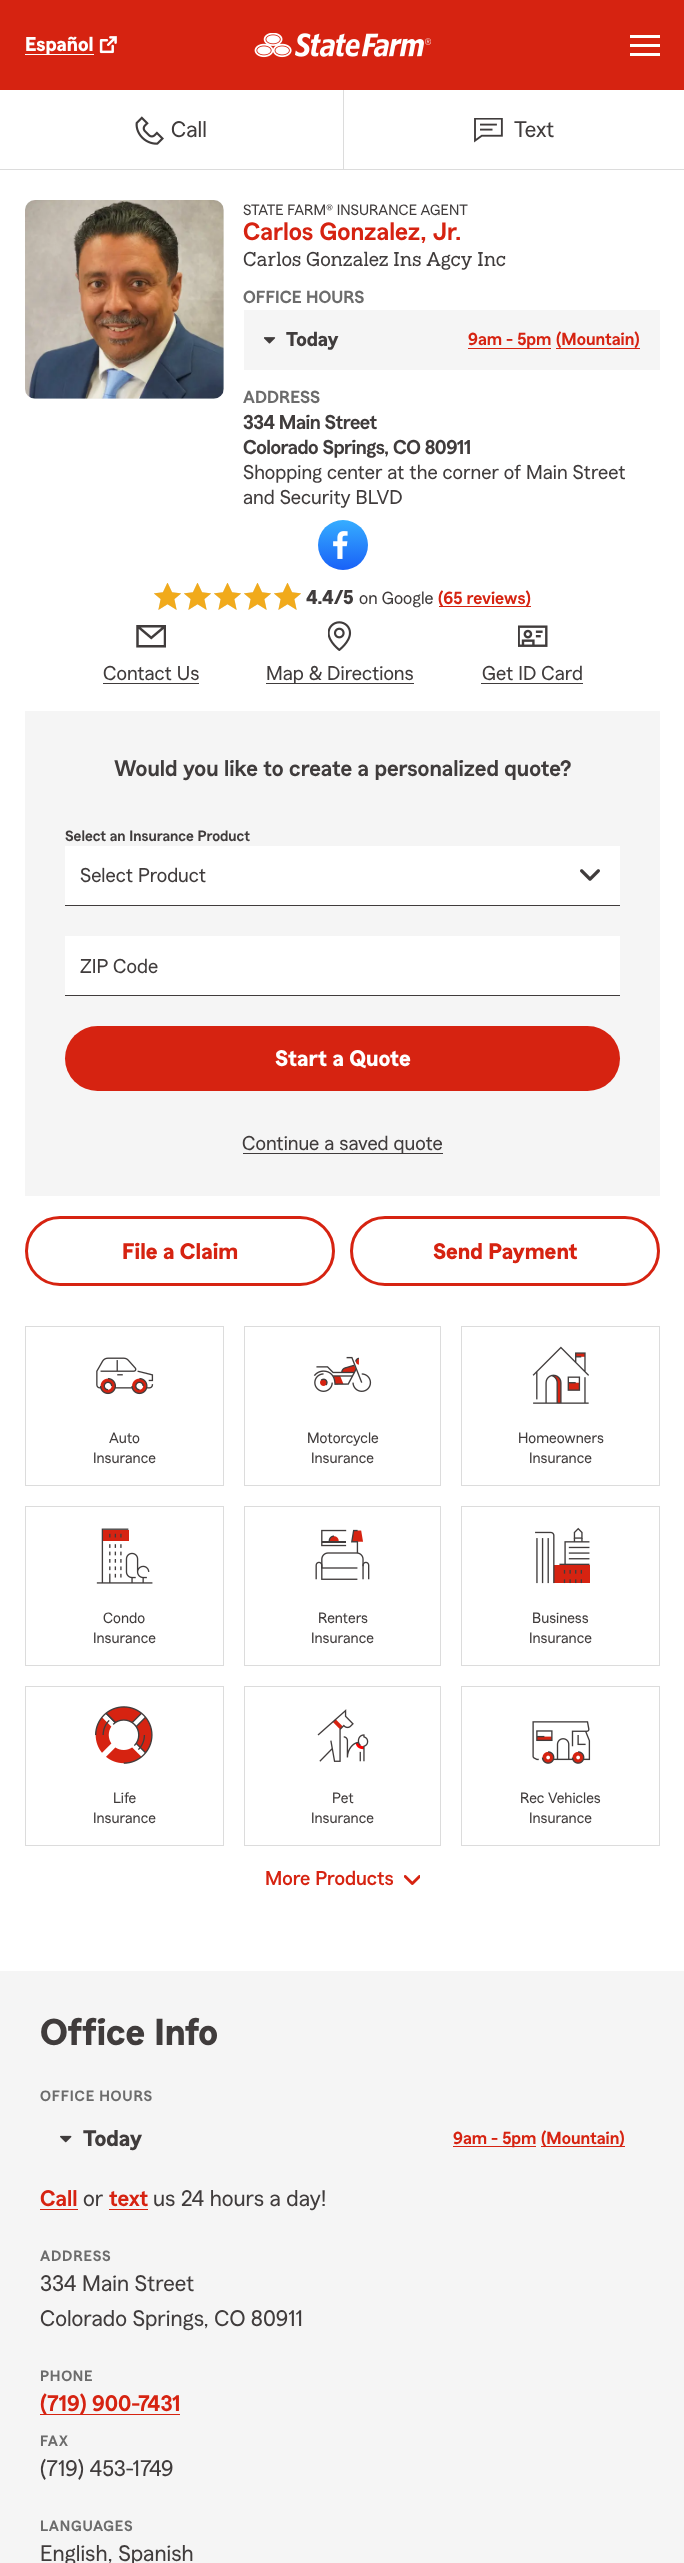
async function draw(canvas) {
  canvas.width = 684
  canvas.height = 2563
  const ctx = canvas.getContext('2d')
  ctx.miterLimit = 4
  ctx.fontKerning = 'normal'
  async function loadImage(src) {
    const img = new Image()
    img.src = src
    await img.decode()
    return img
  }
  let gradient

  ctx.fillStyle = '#fff'
  ctx.fillRect(0, 0, 684, 2563)
  ctx.fillStyle = '#d62311'
  ctx.fillRect(0, 0, 684, 90)
  ctx.fillStyle = '#fff'
  ctx.fillRect(25, 54, 69, 1)
  ctx.font = 'bold 20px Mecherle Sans'
  ctx.fillText('Español', 25, 51)
  ctx.drawImage(await loadImage('image0.png'), 99, 36, 18, 18)
  ctx.drawImage(await loadImage('image1.png'), 254, 33, 177, 25)
  ctx.fillRect(630, 35, 30, 3)
  ctx.fillRect(630, 44, 30, 3)
  ctx.fillRect(630, 53, 30, 3)
  ctx.fillStyle = '#dcdcdc'
  ctx.fillRect(0, 169, 684, 1)
  ctx.drawImage(await loadImage('image2.png'), 135, 116, 29, 29)
  ctx.font = '22.5px Mecherle Sans'
  ctx.fillStyle = '#403c3c'
  ctx.fillText('Call', 171, 137)
  ctx.fillStyle = '#dcdcdc'
  ctx.fillRect(343, 90, 1, 79)
  ctx.drawImage(await loadImage('image3.png'), 474, 118, 29, 25)
  ctx.fillStyle = '#403c3c'
  ctx.fillText('Text', 514, 137)
  ctx.fillStyle = '#f5f5f5'
  ctx.beginPath()
  ctx.roundRect(25, 200, 199, 199, 10)
  ctx.fill()
  ctx.drawImage(await loadImage('image4.png'), 25, 200, 199, 199)
  ctx.font = '15px Mecherle Sans'
  ctx.fillStyle = '#403c3c'
  ctx.fillText('STATE FARM® INSURANCE AGENT', 243, 215)
  ctx.font = '600 25px Mecherle Sans'
  ctx.fillStyle = '#d62311'
  ctx.fillText('Carlos Gonzalez, Jr.', 243, 240)
  ctx.font = '20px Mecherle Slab'
  ctx.fillStyle = '#403c3c'
  ctx.fillText('Carlos Gonzalez Ins Agcy Inc', 243, 266)
  ctx.font = '600 17.5px Mecherle Sans'
  ctx.fillStyle = '#6c6c6c'
  ctx.fillText('OFFICE HOURS', 243, 303)
  ctx.fillStyle = '#f5f5f5'
  ctx.fillRect(244, 310, 416, 60)
  ctx.drawImage(await loadImage('image5.png'), 264, 337, 12, 7)
  ctx.font = 'bold 20px Mecherle Sans'
  ctx.fillStyle = '#403c3c'
  ctx.fillText('Today', 286, 346)
  ctx.fillStyle = '#d62311'
  ctx.fillRect(468, 348, 83, 1)
  ctx.font = '600 17.5px Mecherle Sans'
  ctx.fillText('9am - 5pm', 468, 345)
  ctx.fillRect(556, 348, 84, 1)
  ctx.fillText('(Mountain)', 556, 345)
  ctx.fillStyle = '#6c6c6c'
  ctx.fillText('ADDRESS', 243, 403)
  ctx.letterSpacing = '-0.5px'
  ctx.font = '600 20px Mecherle Sans'
  ctx.fillStyle = '#403c3c'
  ctx.fillText('334 Main Street', 243, 429)
  ctx.fillText('Colorado Springs, CO 80911', 243, 454)
  ctx.letterSpacing = '0px'
  ctx.font = '20px Mecherle Sans'
  ctx.fillText('Shopping center at the corner of Main Street', 243, 479)
  ctx.fillText('and Security BLVD', 243, 504)
  gradient = ctx.createLinearGradient(343, 570, 343, 520)
  gradient.addColorStop(0, '#1961f7')
  gradient.addColorStop(1, '#36adff')
  ctx.fillStyle = gradient
  ctx.beginPath()
  ctx.arc(343, 545, 25, 0, 2 * Math.PI)
  ctx.fill()
  ctx.drawImage(await loadImage('image6.png'), 333, 531, 15, 28)
  ctx.drawImage(await loadImage('image7.png'), 154, 583, 27, 27)
  ctx.drawImage(await loadImage('image7.png'), 184, 583, 27, 27)
  ctx.drawImage(await loadImage('image7.png'), 214, 583, 27, 27)
  ctx.drawImage(await loadImage('image7.png'), 244, 583, 27, 27)
  ctx.drawImage(await loadImage('image7.png'), 274, 583, 27, 27)
  ctx.font = 'bold 20px Mecherle Sans'
  ctx.fillStyle = '#403c3c'
  ctx.fillText('4.4/5', 306, 604)
  ctx.font = '17.5px Mecherle Sans'
  ctx.fillText('on Google', 359, 604)
  ctx.fillStyle = '#d62311'
  ctx.fillRect(439, 606, 92, 1)
  ctx.font = '600 17.5px Mecherle Sans'
  ctx.fillText('(65 reviews)', 438, 604)
  ctx.drawImage(await loadImage('image8.png'), 136, 625, 30, 23)
  ctx.font = '20px Mecherle Sans'
  ctx.fillStyle = '#403c3c'
  ctx.fillText('Contact Us', 103, 680)
  ctx.fillRect(103, 683, 96, 1)
  ctx.drawImage(await loadImage('image9.png'), 328, 621, 24, 30)
  ctx.fillRect(266, 683, 148, 1)
  ctx.fillText('Map & Directions', 266, 680)
  ctx.drawImage(await loadImage('image10.png'), 518, 625, 30, 22)
  ctx.fillText('Get ID Card', 482, 680)
  ctx.fillRect(481, 683, 102, 1)
  ctx.fillStyle = '#f5f5f5'
  ctx.fillRect(25, 711, 635, 485)
  ctx.font = '600 22.5px Mecherle Sans'
  ctx.fillStyle = '#403c3c'
  ctx.fillText('Would you like to create a personalized quote?', 114, 776)
  ctx.fillRect(65, 905, 555, 1)
  ctx.font = '600 15px Mecherle Sans'
  ctx.fillText('Select an Insurance Product', 65, 841)
  ctx.fillStyle = '#fff'
  ctx.fillRect(65, 846, 555, 59)
  ctx.font = '20px Mecherle Sans'
  ctx.fillStyle = '#403c3c'
  ctx.fillText('Select Product', 80, 882)
  ctx.drawImage(await loadImage('image11.png'), 580, 869, 20, 12)
  ctx.fillStyle = '#fff'
  ctx.fillRect(65, 936, 555, 59)
  ctx.fillStyle = '#403c3c'
  ctx.fillRect(65, 995, 555, 1)
  ctx.fillText('ZIP Code', 80, 973)
  ctx.fillStyle = '#d62311'
  ctx.beginPath()
  ctx.roundRect(65, 1026, 555, 65, 32.5)
  ctx.fill()
  ctx.font = 'bold 22.5px Mecherle Sans'
  ctx.fillStyle = '#fff'
  ctx.fillText('Start a Quote', 275, 1066)
  ctx.fillStyle = '#403c3c'
  ctx.fillRect(243, 1153, 200, 1)
  ctx.font = '20px Mecherle Sans'
  ctx.fillText('Continue a saved quote', 242, 1150)
  ctx.beginPath()
  ctx.roundRect(26.5, 1217.5, 307, 67, 33.5)
  ctx.strokeStyle = '#d62311'
  ctx.lineWidth = 3
  ctx.stroke()
  ctx.font = 'bold 22.5px Mecherle Sans'
  ctx.fillStyle = '#d62311'
  ctx.fillText('File a Claim', 122, 1259)
  ctx.beginPath()
  ctx.roundRect(351.5, 1217.5, 307, 67, 33.5)
  ctx.stroke()
  ctx.fillText('Send Payment', 433, 1259)
  ctx.strokeStyle = '#dcdcdc'
  ctx.lineWidth = 1
  ctx.strokeRect(25.5, 1326.5, 198, 159)
  ctx.drawImage(await loadImage('image12.png'), 96, 1357, 58, 38)
  ctx.font = '15px Mecherle Sans'
  ctx.fillStyle = '#403c3c'
  ctx.fillText('Auto', 109, 1443)
  ctx.fillText('Insurance', 93, 1463)
  ctx.strokeRect(244.5, 1326.5, 196, 159)
  ctx.drawImage(await loadImage('image13.png'), 313, 1356, 59, 36)
  ctx.fillText('Motorcycle', 307, 1443)
  ctx.fillText('Insurance', 311, 1463)
  ctx.strokeRect(461.5, 1326.5, 198, 159)
  ctx.drawImage(await loadImage('image14.png'), 532, 1346, 57, 58)
  ctx.fillText('Homeowners', 518, 1443)
  ctx.fillText('Insurance', 529, 1463)
  ctx.strokeRect(25.5, 1506.5, 198, 159)
  ctx.drawImage(await loadImage('image15.png'), 96, 1528, 57, 56)
  ctx.fillText('Condo', 103, 1623)
  ctx.fillText('Insurance', 93, 1643)
  ctx.strokeRect(244.5, 1506.5, 196, 159)
  ctx.drawImage(await loadImage('image16.png'), 315, 1529, 55, 51)
  ctx.fillText('Renters', 318, 1623)
  ctx.fillText('Insurance', 311, 1643)
  ctx.strokeRect(461.5, 1506.5, 198, 159)
  ctx.drawImage(await loadImage('image17.png'), 535, 1527, 55, 57)
  ctx.fillText('Business', 532, 1623)
  ctx.fillText('Insurance', 529, 1643)
  ctx.strokeRect(25.5, 1686.5, 198, 159)
  ctx.drawImage(await loadImage('image18.png'), 95, 1706, 58, 58)
  ctx.fillText('Life', 113, 1803)
  ctx.fillText('Insurance', 93, 1823)
  ctx.strokeRect(244.5, 1686.5, 196, 159)
  ctx.drawImage(await loadImage('image19.png'), 317, 1709, 52, 53)
  ctx.fillText('Pet', 332, 1803)
  ctx.fillText('Insurance', 311, 1823)
  ctx.strokeRect(461.5, 1686.5, 198, 159)
  ctx.drawImage(await loadImage('image20.png'), 532, 1721, 59, 43)
  ctx.fillText('Rec Vehicles', 520, 1803)
  ctx.fillText('Insurance', 529, 1823)
  ctx.font = '500 20px Mecherle Sans'
  ctx.fillStyle = '#d62311'
  ctx.fillText('More Products', 265, 1885)
  ctx.drawImage(await loadImage('image21.png'), 404, 1875, 16, 10)
  ctx.fillStyle = '#f5f5f5'
  ctx.fillRect(0, 1971, 684, 592)
  ctx.font = 'bold 37.5px Mecherle Sans'
  ctx.fillStyle = '#403c3c'
  ctx.fillText('Office Info', 40, 2045)
  ctx.letterSpacing = '0.75px'
  ctx.font = '600 15px Mecherle Sans'
  ctx.fillStyle = '#6c6c6c'
  ctx.fillText('OFFICE HOURS', 40, 2101)
  ctx.drawImage(await loadImage('image22.png'), 60, 2135, 12, 8)
  ctx.letterSpacing = '0px'
  ctx.font = 'bold 22.5px Mecherle Sans'
  ctx.fillStyle = '#403c3c'
  ctx.fillText('Today', 83, 2146)
  ctx.fillStyle = '#d62311'
  ctx.fillRect(453, 2146, 83, 1)
  ctx.font = '600 17.5px Mecherle Sans'
  ctx.fillText('9am - 5pm', 453, 2144)
  ctx.fillRect(541, 2146, 84, 1)
  ctx.fillText('(Mountain)', 541, 2144)
  ctx.font = '600 22.5px Mecherle Sans'
  ctx.fillText('Call', 40, 2206)
  ctx.fillRect(40, 2209, 38, 1)
  ctx.font = '22.5px Mecherle Sans'
  ctx.fillStyle = '#403c3c'
  ctx.fillText('or', 83, 2206)
  ctx.font = '600 22.5px Mecherle Sans'
  ctx.fillStyle = '#d62311'
  ctx.fillText('text', 109, 2206)
  ctx.fillRect(109, 2209, 39, 1)
  ctx.font = '22.5px Mecherle Sans'
  ctx.fillStyle = '#403c3c'
  ctx.fillText('us 24 hours a day!', 153, 2206)
  ctx.letterSpacing = '0.75px'
  ctx.font = '600 15px Mecherle Sans'
  ctx.fillStyle = '#6c6c6c'
  ctx.fillText('ADDRESS', 40, 2261)
  ctx.letterSpacing = '0px'
  ctx.font = '22.5px Mecherle Sans'
  ctx.fillStyle = '#403c3c'
  ctx.fillText('334 Main Street', 40, 2291)
  ctx.fillText('Colorado Springs, CO 80911', 40, 2326)
  ctx.letterSpacing = '0.75px'
  ctx.font = '600 15px Mecherle Sans'
  ctx.fillStyle = '#6c6c6c'
  ctx.fillText('PHONE', 40, 2381)
  ctx.fillStyle = '#d62311'
  ctx.fillRect(40, 2414, 140, 1)
  ctx.letterSpacing = '0px'
  ctx.font = '600 22.5px Mecherle Sans'
  ctx.fillText('(719) 900-7431', 40, 2411)
  ctx.letterSpacing = '0.75px'
  ctx.font = '600 15px Mecherle Sans'
  ctx.fillStyle = '#6c6c6c'
  ctx.fillText('FAX', 40, 2446)
  ctx.letterSpacing = '0px'
  ctx.font = '22.5px Mecherle Sans'
  ctx.fillStyle = '#403c3c'
  ctx.fillText('(719) 453-1749', 40, 2476)
  ctx.letterSpacing = '0.75px'
  ctx.font = '600 15px Mecherle Sans'
  ctx.fillStyle = '#6c6c6c'
  ctx.fillText('LANGUAGES', 40, 2531)
  ctx.letterSpacing = '0px'
  ctx.font = '22.5px Mecherle Sans'
  ctx.fillStyle = '#403c3c'
  ctx.fillText('English, Spanish', 40, 2561)
}

draw(document.querySelector('canvas'))
